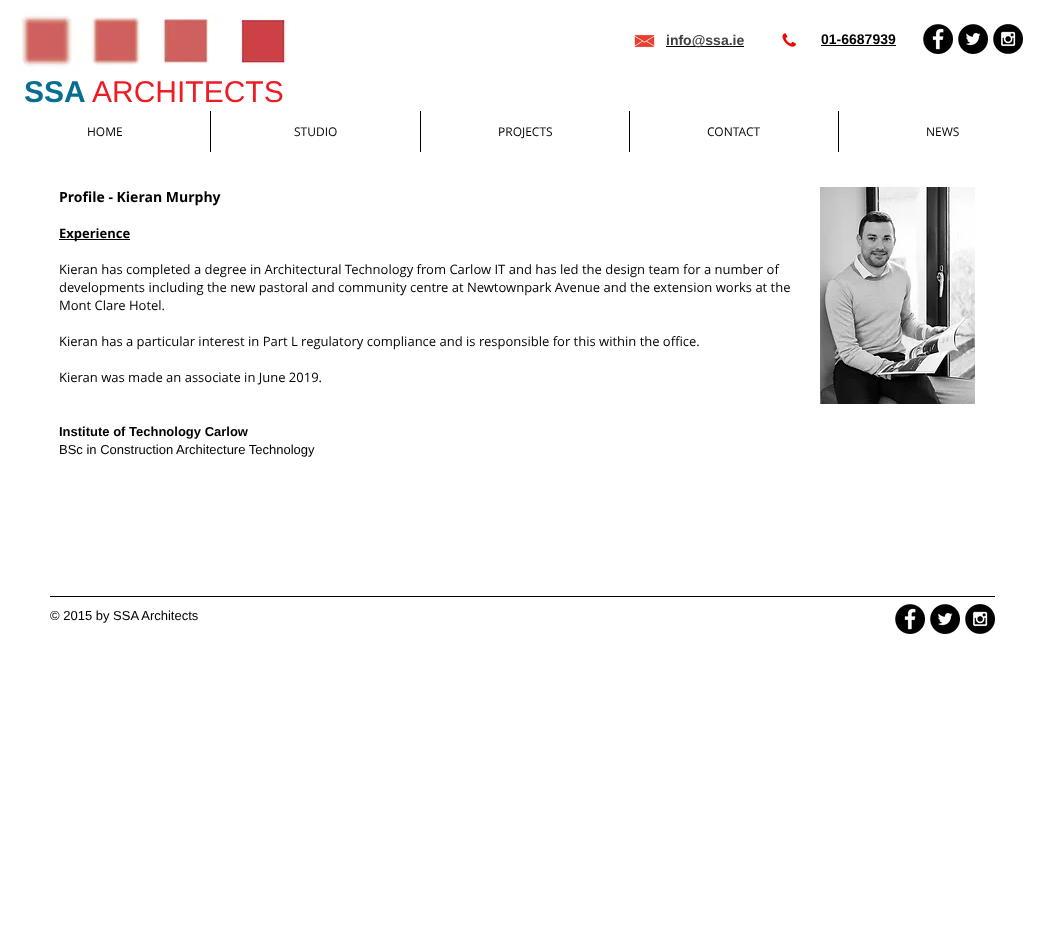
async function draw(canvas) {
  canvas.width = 1047
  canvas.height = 948
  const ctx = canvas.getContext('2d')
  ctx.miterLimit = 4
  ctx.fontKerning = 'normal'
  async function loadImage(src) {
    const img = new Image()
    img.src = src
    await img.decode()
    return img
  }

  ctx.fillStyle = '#fff'
  ctx.fillRect(0, 0, 1047, 948)
  ctx.drawImage(await loadImage('image0.png'), 634, 34, 21, 14)
  ctx.fillStyle = '#000'
  ctx.fillRect(666, 46, 78, 1)
  ctx.font = 'bold 14px Liberation Sans'
  ctx.fillStyle = '#404040'
  ctx.fillText('info@ssa.ie', 666, 45)
  ctx.drawImage(await loadImage('image1.png'), 782, 33, 14, 14)
  ctx.fillStyle = '#000'
  ctx.fillText('01-6687939', 821, 44)
  ctx.fillRect(821, 45, 75, 1)
  ctx.drawImage(await loadImage('image2.png'), 923, 24, 30, 30)
  ctx.drawImage(await loadImage('image3.png'), 958, 24, 30, 30)
  ctx.drawImage(await loadImage('image4.png'), 993, 24, 30, 30)
  ctx.drawImage(await loadImage('image5.png'), 17, 13, 272, 58)
  ctx.font = 'bold 30px Liberation Sans'
  ctx.fillStyle = '#096d91'
  ctx.fillText('SSA', 24, 102)
  ctx.font = '30px Liberation Sans'
  ctx.fillStyle = '#ed1c24'
  ctx.fillText('ARCHITECTS', 92, 102)
  ctx.font = '12px Open Sans'
  ctx.fillStyle = '#000'
  ctx.fillText('HOME', 87, 136)
  ctx.fillRect(210, 111, 1, 41)
  ctx.fillText('STUDIO', 294, 136)
  ctx.fillRect(420, 111, 1, 41)
  ctx.fillText('PROJECTS', 498, 136)
  ctx.fillRect(629, 111, 1, 41)
  ctx.fillText('CONTACT', 707, 136)
  ctx.fillRect(838, 111, 1, 41)
  ctx.fillText('NEWS', 926, 136)
  ctx.font = 'bold 14px Open Sans'
  ctx.fillText('Profile - Kieran Murphy', 59, 202)
  ctx.fillRect(59, 239, 71, 1)
  ctx.font = 'bold 13px Open Sans'
  ctx.fillText('Experience', 59, 238)
  ctx.font = '13px Open Sans'
  ctx.fillText('Kieran has completed a degree in Architectural Technology from Carlow IT and has led the design team for a number of', 59, 274)
  ctx.fillText('developments including the new pastoral and community centre at Newtownpark Avenue and the extension works at the', 59, 292)
  ctx.fillText('Mont Clare Hotel.', 59, 310)
  ctx.fillText('Kieran has a particular interest in Part L regulatory compliance and is responsible for this within the office.', 59, 346)
  ctx.fillText('Kieran was made an associate in June 2019.', 59, 382)
  ctx.font = 'bold 13px Liberation Sans'
  ctx.fillText('Institute of Technology Carlow', 59, 436)
  ctx.font = '13px Liberation Sans'
  ctx.fillText('BSc in Construction Architecture Technology', 59, 454)
  ctx.drawImage(await loadImage('image6.png'), 820, 187, 155, 217)
  ctx.fillRect(50, 596, 945, 1)
  ctx.fillText('© 2015 by SSA Architects', 50, 620)
  ctx.drawImage(await loadImage('image2.png'), 895, 604, 30, 30)
  ctx.drawImage(await loadImage('image3.png'), 930, 604, 30, 30)
  ctx.drawImage(await loadImage('image4.png'), 965, 604, 30, 30)
}

draw(document.querySelector('canvas'))
